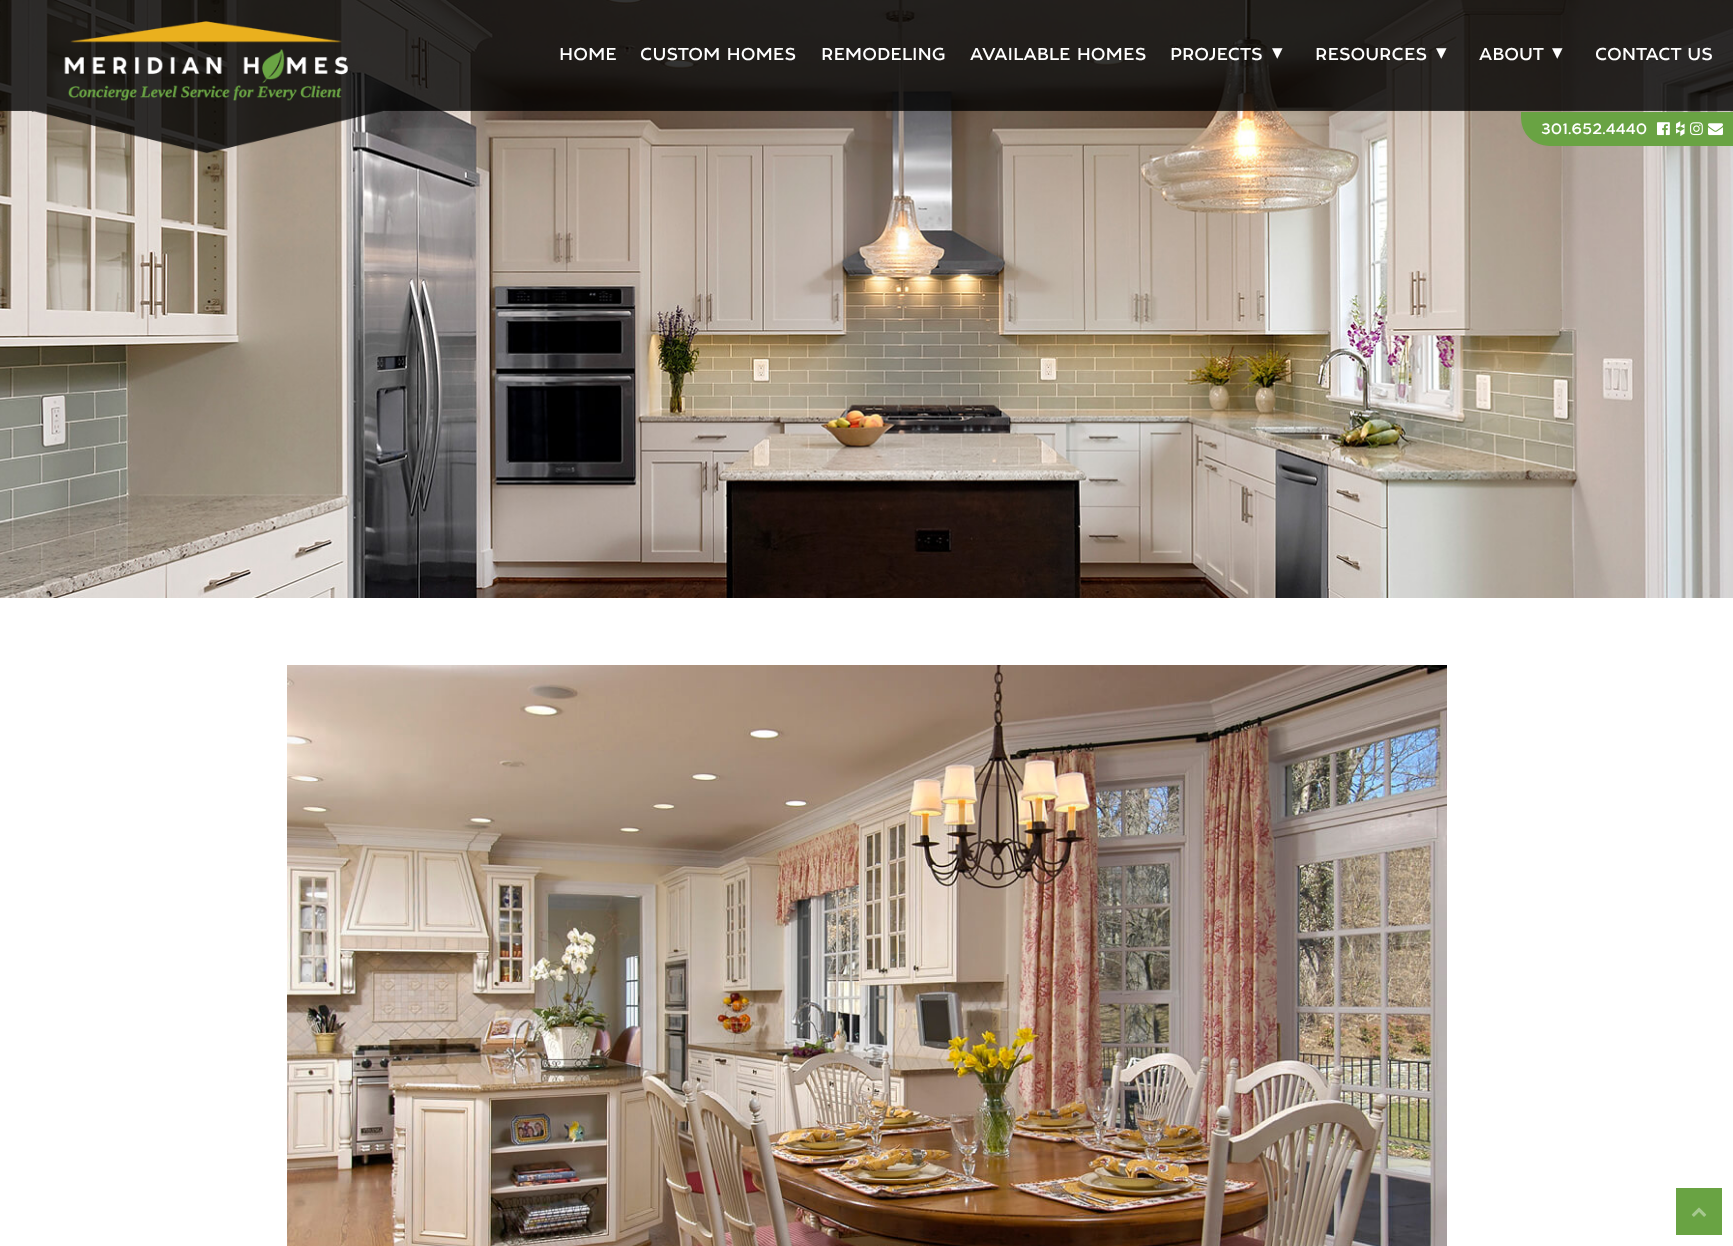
async function draw(canvas) {
  canvas.width = 1733
  canvas.height = 1246
  const ctx = canvas.getContext('2d')
  ctx.miterLimit = 4
  ctx.fontKerning = 'normal'
  async function loadImage(src) {
    const img = new Image()
    img.src = src
    await img.decode()
    return img
  }

  ctx.fillStyle = '#fff'
  ctx.fillRect(0, 0, 1733, 1246)
  ctx.drawImage(await loadImage('image0.png'), 0, 0, 1733, 598)
  ctx.drawImage(await loadImage('image1.png'), 0, 0, 1733, 154)
  ctx.font = '17.25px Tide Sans'
  ctx.fillText('HOME', 559, 60)
  ctx.fillText('CUSTOM HOMES', 640, 60)
  ctx.fillText('REMODELING', 821, 60)
  ctx.fillText('AVAILABLE HOMES', 970, 60)
  ctx.fillText('PROJECTS', 1170, 60)
  ctx.font = '21px DejaVu Sans'
  ctx.fillText('▾', 1272, 59)
  ctx.font = '17.25px Tide Sans'
  ctx.fillText('RESOURCES', 1315, 60)
  ctx.font = '21px DejaVu Sans'
  ctx.fillText('▾', 1436, 59)
  ctx.font = '17.25px Tide Sans'
  ctx.fillText('ABOUT', 1479, 60)
  ctx.font = '21px DejaVu Sans'
  ctx.fillText('▾', 1552, 59)
  ctx.font = '17.25px Tide Sans'
  ctx.fillText('CONTACT US', 1595, 60)
  ctx.fillStyle = '#69a343'
  ctx.beginPath()
  ctx.roundRect(1521, 112, 212, 34, [0, 0, 0, 28])
  ctx.fill()
  ctx.font = '15px Tide Sans'
  ctx.fillStyle = '#fff'
  ctx.fillText('301.652.4440', 1541, 134)
  ctx.drawImage(await loadImage('image2.png'), 1657, 122, 13, 14)
  ctx.drawImage(await loadImage('image3.png'), 1676, 121, 9, 15)
  ctx.drawImage(await loadImage('image4.png'), 1690, 122, 13, 14)
  ctx.drawImage(await loadImage('image5.png'), 1708, 123, 15, 13)
  ctx.drawImage(await loadImage('image6.png'), 287, 665, 1160, 581)
  ctx.fillStyle = '#69a343'
  ctx.fillRect(1676, 1188, 46, 47)
  ctx.drawImage(await loadImage('image7.png'), 1691, 1207, 16, 10)
}

draw(document.querySelector('canvas'))
